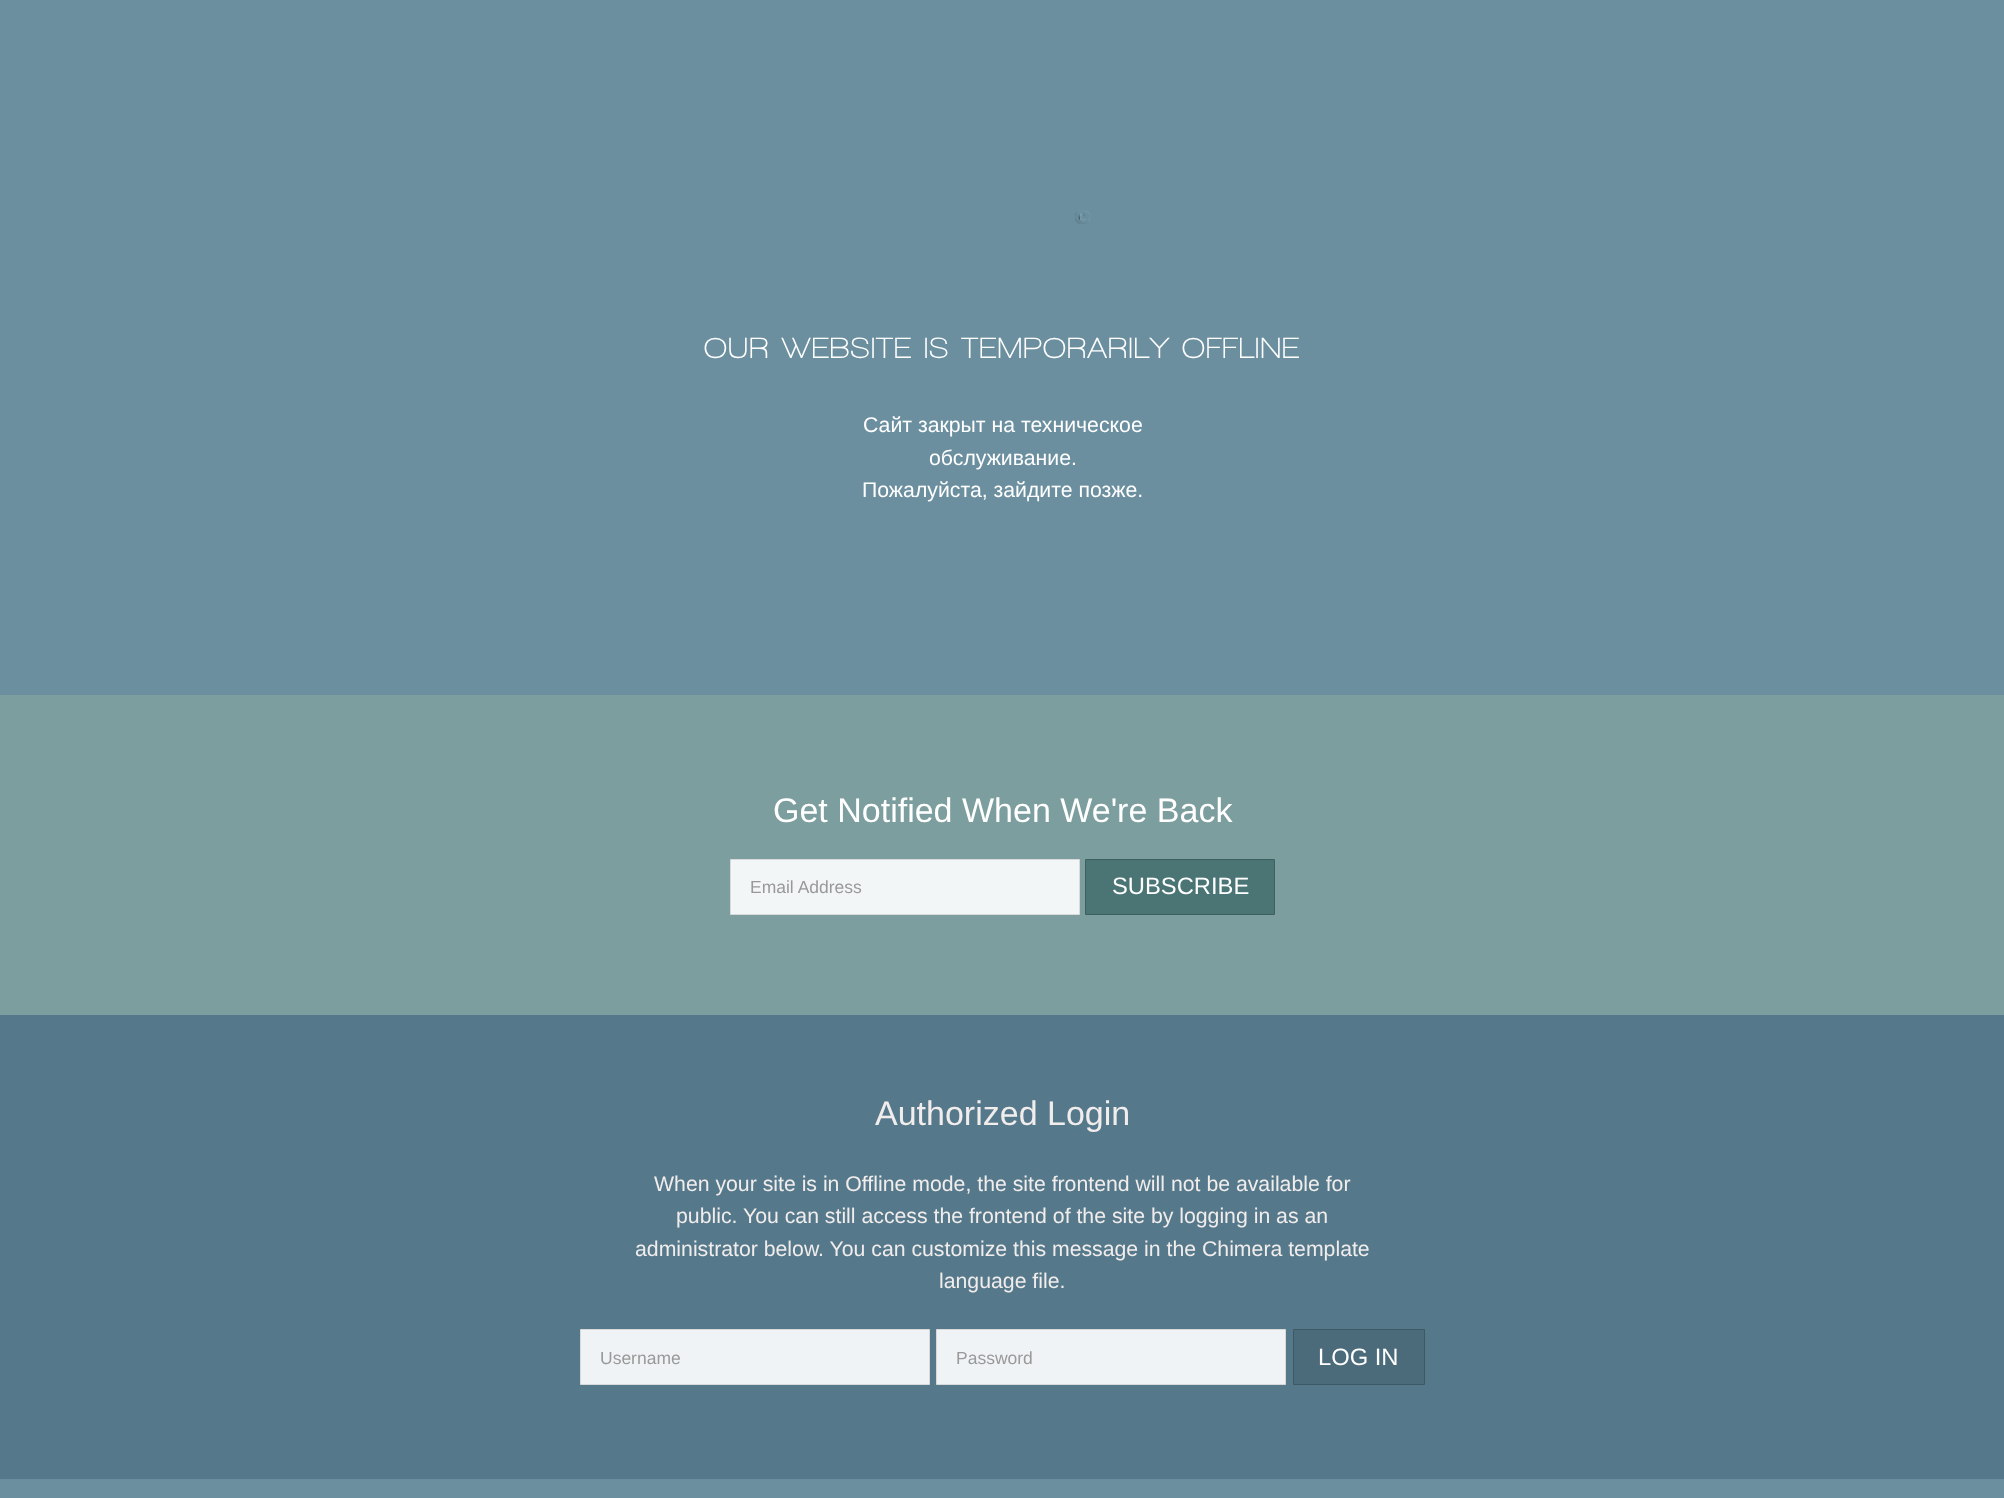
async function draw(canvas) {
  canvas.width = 2004
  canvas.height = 1498
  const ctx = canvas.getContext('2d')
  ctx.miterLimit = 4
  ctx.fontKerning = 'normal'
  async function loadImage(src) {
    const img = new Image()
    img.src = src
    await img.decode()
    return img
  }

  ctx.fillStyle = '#6b8f9f'
  ctx.fillRect(0, 0, 2004, 1498)
  ctx.drawImage(await loadImage('image0.png'), 1075, 210, 15, 14)
  ctx.letterSpacing = '1.25px'
  ctx.font = 'bold 30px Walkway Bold'
  ctx.fillStyle = '#fff'
  ctx.fillText('OUR WEBSITE IS TEMPORARILY OFFLINE', 704, 358)
  ctx.letterSpacing = '0px'
  ctx.font = '21.25px Liberation Sans'
  ctx.fillText('Сайт закрыт на техническое', 863, 432)
  ctx.fillText('обслуживание.', 929, 465)
  ctx.fillText('Пожалуйста, зайдите позже.', 862, 497)
  ctx.fillStyle = '#7d9e9e'
  ctx.fillRect(0, 695, 2004, 320)
  ctx.font = '34px Liberation Sans'
  ctx.fillStyle = '#fff'
  ctx.fillText('Get Notified When We\'re Back', 773, 822)
  ctx.fillStyle = '#f3f6f6'
  ctx.beginPath()
  ctx.rect(730.5, 859.5, 349, 55)
  ctx.fill()
  ctx.strokeStyle = '#d9d9d9'
  ctx.stroke()
  ctx.font = '17.5px Liberation Sans'
  ctx.fillStyle = '#999'
  ctx.fillText('Email Address', 750, 893)
  ctx.fillStyle = '#4b7575'
  ctx.beginPath()
  ctx.rect(1085.5, 859.5, 189, 55)
  ctx.fill()
  ctx.strokeStyle = '#3d605f'
  ctx.stroke()
  ctx.font = '23.75px Liberation Sans'
  ctx.fillStyle = '#fff'
  ctx.fillText('SUBSCRIBE', 1112, 894)
  ctx.fillStyle = '#55798a'
  ctx.fillRect(0, 1015, 2004, 464)
  ctx.font = '34px Liberation Sans'
  ctx.fillStyle = '#f2eded'
  ctx.fillText('Authorized Login', 875, 1125)
  ctx.font = '21.25px Liberation Sans'
  ctx.fillText('When your site is in Offline mode, the site frontend will not be available for', 654, 1191)
  ctx.fillText('public. You can still access the frontend of the site by logging in as an', 676, 1223)
  ctx.fillText('administrator below. You can customize this message in the Chimera template', 635, 1256)
  ctx.fillText('language file.', 939, 1288)
  ctx.fillStyle = '#f0f3f5'
  ctx.beginPath()
  ctx.rect(580.5, 1329.5, 349, 55)
  ctx.fill()
  ctx.strokeStyle = '#d9d9d9'
  ctx.stroke()
  ctx.font = '17.5px Liberation Sans'
  ctx.fillStyle = '#999'
  ctx.fillText('Username', 600, 1364)
  ctx.fillStyle = '#f0f3f5'
  ctx.beginPath()
  ctx.rect(936.5, 1329.5, 349, 55)
  ctx.fill()
  ctx.stroke()
  ctx.fillStyle = '#999'
  ctx.fillText('Password', 956, 1364)
  ctx.fillStyle = '#4b6b7a'
  ctx.beginPath()
  ctx.rect(1293.5, 1329.5, 131, 55)
  ctx.fill()
  ctx.strokeStyle = '#3e5864'
  ctx.stroke()
  ctx.font = '23.75px Liberation Sans'
  ctx.fillStyle = '#fff'
  ctx.fillText('LOG IN', 1318, 1365)
}

draw(document.querySelector('canvas'))
